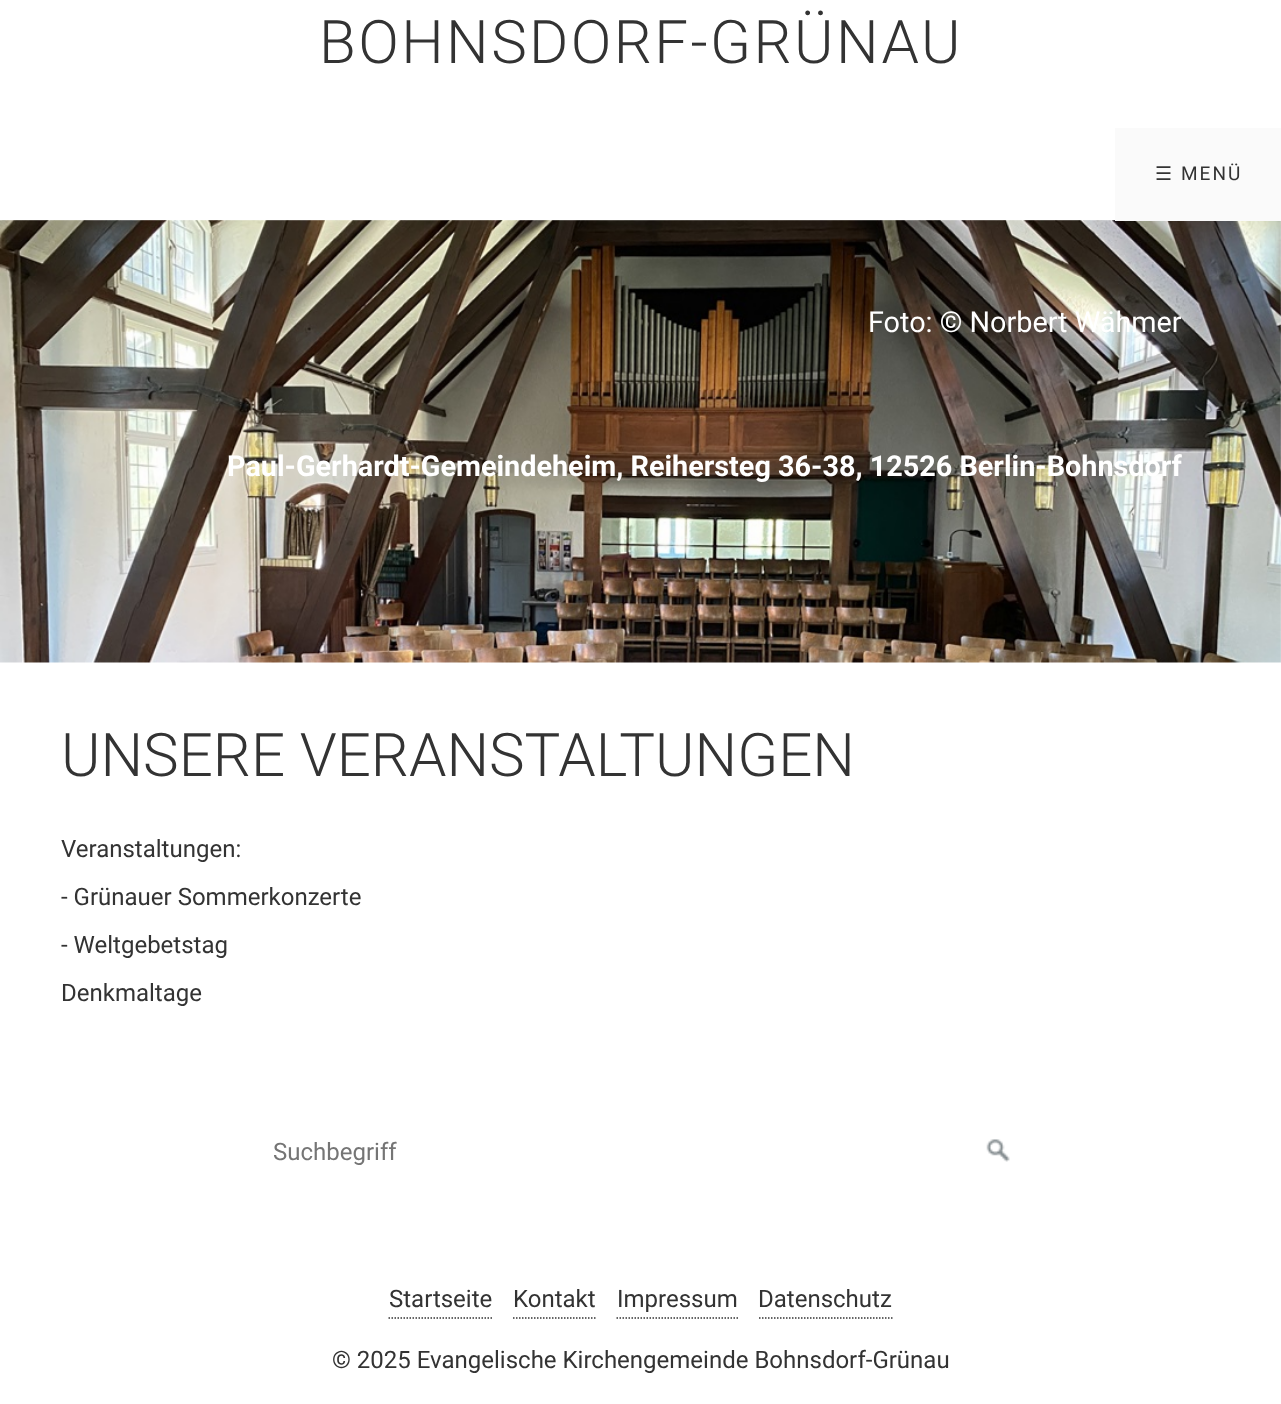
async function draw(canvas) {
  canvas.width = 1281
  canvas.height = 1404
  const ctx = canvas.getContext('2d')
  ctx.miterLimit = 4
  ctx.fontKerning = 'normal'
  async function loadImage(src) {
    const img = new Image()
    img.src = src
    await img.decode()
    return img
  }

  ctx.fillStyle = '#fff'
  ctx.fillRect(0, 0, 1281, 1404)
  ctx.letterSpacing = '2.4px'
  ctx.font = '300 60px Roboto'
  ctx.fillStyle = '#333'
  ctx.fillText('BOHNSDORF-GRÜNAU', 319, 63)
  ctx.drawImage(await loadImage('image0.png'), 0, 220, 1281, 443)
  ctx.fillStyle = '#ffffff1a'
  ctx.fillRect(0, 220, 1115, 1)
  ctx.fillRect(0, 220, 1115, 1)
  ctx.fillStyle = '#fafafa'
  ctx.fillRect(1115, 128, 166, 93)
  ctx.letterSpacing = '2px'
  ctx.font = '19px DejaVu Sans'
  ctx.fillStyle = '#333'
  ctx.fillText('☰', 1155, 180)
  ctx.font = '19px Roboto'
  ctx.fillText('MENÜ', 1181, 180)
  ctx.letterSpacing = '0px'
  ctx.font = '28.8px Roboto'
  ctx.fillStyle = '#fff'
  ctx.fillText('Foto: © Norbert Wähmer', 868, 332)
  ctx.font = 'bold 28.8px Roboto'
  ctx.fillText('Paul-Gerhardt-Gemeindeheim, Reihersteg 36-38, 12526 Berlin-Bohnsdorf', 227, 476)
  ctx.font = '300 60px Roboto'
  ctx.fillStyle = '#333'
  ctx.fillText('UNSERE VERANSTALTUNGEN', 61, 776)
  ctx.font = '24px Roboto'
  ctx.fillText('Veranstaltungen:', 61, 857)
  ctx.fillText('- Grünauer Sommerkonzerte', 61, 905)
  ctx.fillText('- Weltgebetstag', 61, 953)
  ctx.fillText('Denkmaltage', 61, 1001)
  ctx.fillStyle = '#757575'
  ctx.fillText('Suchbegriff', 273, 1160)
  ctx.drawImage(await loadImage('image1.png'), 986, 1139, 24, 23)
  ctx.beginPath()
  ctx.moveTo(388.5, 1318)
  ctx.lineTo(492, 1318)
  ctx.strokeStyle = '#333'
  ctx.lineWidth = 1.5
  ctx.setLineDash([1.5, 1.5])
  ctx.stroke()
  ctx.fillStyle = '#333'
  ctx.fillText('Startseite', 389, 1307)
  ctx.beginPath()
  ctx.moveTo(513, 1318)
  ctx.lineTo(595.5, 1318)
  ctx.stroke()
  ctx.fillText('Kontakt', 513, 1307)
  ctx.beginPath()
  ctx.moveTo(616.5, 1318)
  ctx.lineTo(738, 1318)
  ctx.stroke()
  ctx.fillText('Impressum', 617, 1307)
  ctx.beginPath()
  ctx.moveTo(759, 1318)
  ctx.lineTo(892.5, 1318)
  ctx.stroke()
  ctx.fillText('Datenschutz', 758, 1307)
  ctx.fillText('© 2025 Evangelische Kirchengemeinde Bohnsdorf-Grünau', 332, 1368)
}

draw(document.querySelector('canvas'))
